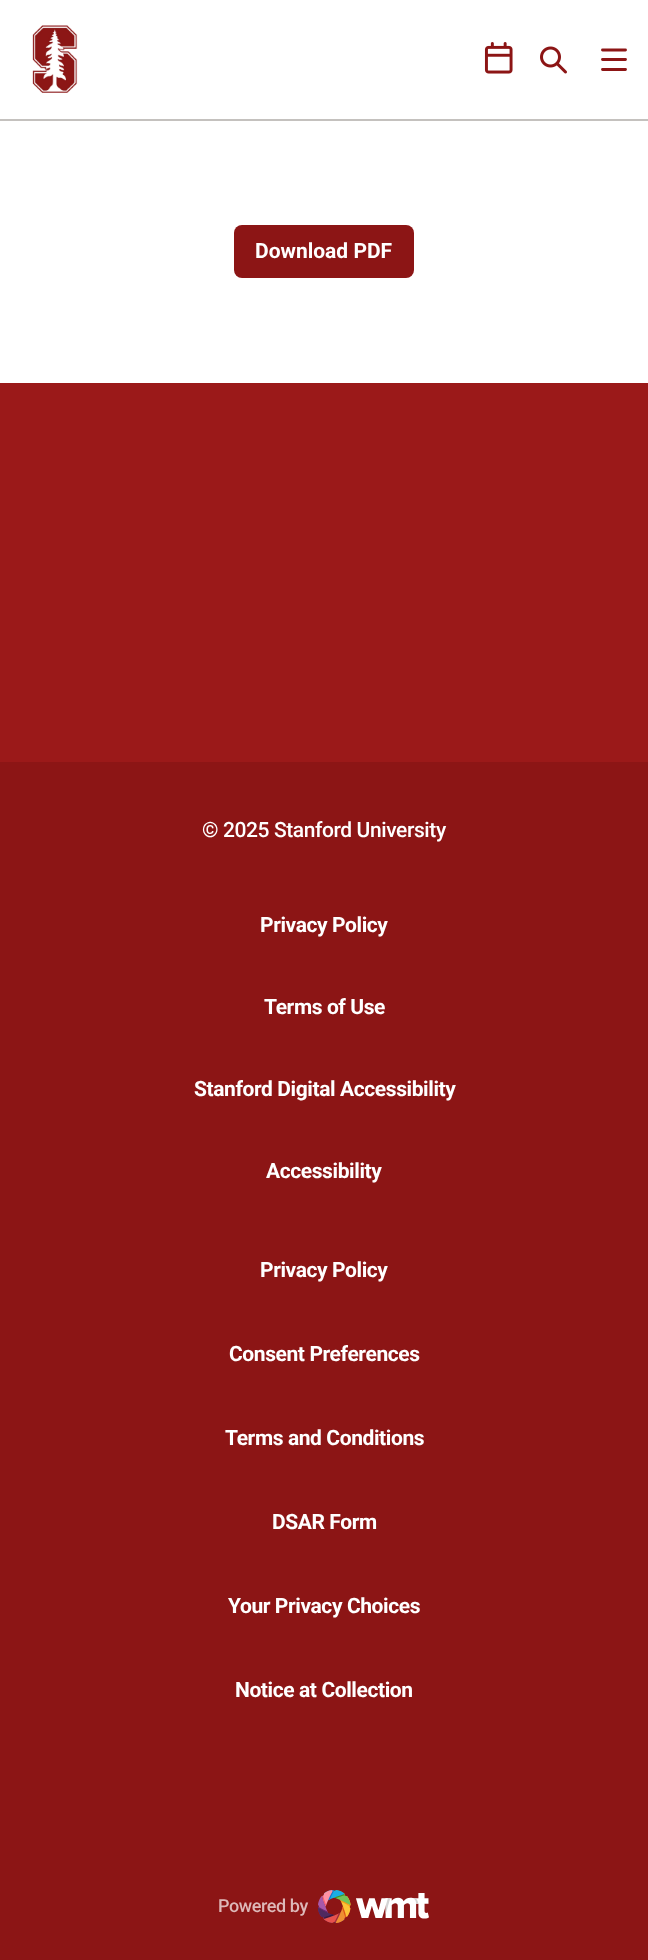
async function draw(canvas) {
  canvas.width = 648
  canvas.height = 1960
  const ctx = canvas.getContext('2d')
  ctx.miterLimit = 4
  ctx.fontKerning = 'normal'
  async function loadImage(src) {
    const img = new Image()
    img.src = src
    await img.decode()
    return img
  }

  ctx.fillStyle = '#fff'
  ctx.fillRect(0, 0, 648, 1960)
  ctx.fillStyle = '#c4c1be'
  ctx.fillRect(0, 119, 648, 2)
  ctx.drawImage(await loadImage('image0.png'), 32, 25, 46, 68)
  ctx.drawImage(await loadImage('image1.png'), 484, 42, 29, 32)
  ctx.drawImage(await loadImage('image2.png'), 540, 46, 27, 28)
  ctx.beginPath()
  ctx.moveTo(602.5, 50)
  ctx.lineTo(625.5, 50)
  ctx.moveTo(602.5, 59.5)
  ctx.lineTo(625.5, 59.5)
  ctx.moveTo(625.5, 69.5)
  ctx.lineTo(602.5, 69.5)
  ctx.strokeStyle = '#8c1515'
  ctx.lineWidth = 2.9
  ctx.lineCap = 'round'
  ctx.stroke()
  ctx.fillStyle = '#8c1515'
  ctx.beginPath()
  ctx.roundRect(234, 225, 180, 53, 8)
  ctx.fill()
  ctx.font = 'bold 21px Roboto'
  ctx.fillStyle = '#fff'
  ctx.fillText('Download PDF', 255, 258)
  ctx.fillStyle = '#9b1919'
  ctx.fillRect(0, 383, 648, 379)
  ctx.fillStyle = '#8c1515'
  ctx.fillRect(0, 762, 648, 1198)
  ctx.letterSpacing = '-0.4px'
  ctx.font = '500 21px Roboto'
  ctx.fillStyle = '#fff'
  ctx.fillText('© 2025 Stanford University', 202, 837)
  ctx.font = 'bold 21px Roboto'
  ctx.fillText('Privacy Policy', 260, 932)
  ctx.fillText('Terms of Use', 264, 1014)
  ctx.fillText('Stanford Digital Accessibility', 194, 1096)
  ctx.fillText('Accessibility', 266, 1178)
  ctx.fillText('Privacy Policy', 260, 1277)
  ctx.fillText('Consent Preferences', 229, 1361)
  ctx.fillText('Terms and Conditions', 225, 1445)
  ctx.fillText('DSAR Form', 272, 1529)
  ctx.fillText('Your Privacy Choices', 228, 1613)
  ctx.fillText('Notice at Collection', 235, 1697)
  ctx.font = '500 18px Roboto'
  ctx.fillStyle = '#ddb9b9'
  ctx.fillText('Powered by', 218, 1912)
  ctx.drawImage(await loadImage('image3.png'), 318, 1890, 111, 33)
}

draw(document.querySelector('canvas'))
